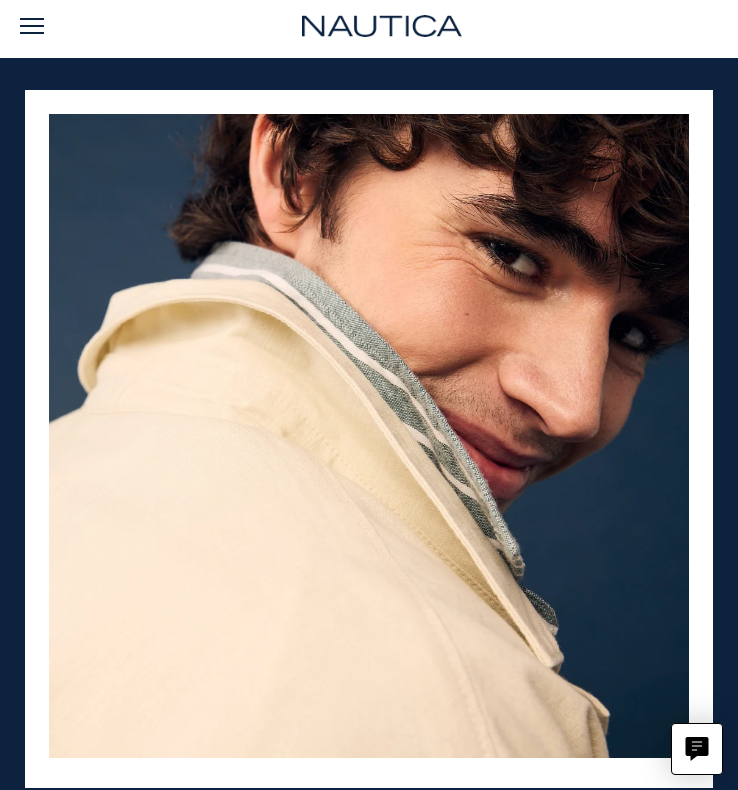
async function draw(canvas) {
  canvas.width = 738
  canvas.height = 790
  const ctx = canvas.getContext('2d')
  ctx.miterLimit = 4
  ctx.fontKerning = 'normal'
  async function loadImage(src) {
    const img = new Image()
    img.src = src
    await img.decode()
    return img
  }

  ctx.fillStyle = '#fff'
  ctx.fillRect(0, 0, 738, 790)
  ctx.fillStyle = '#0d223f'
  ctx.fillRect(20, 18, 24, 2)
  ctx.fillRect(20, 25, 24, 2)
  ctx.fillRect(20, 32, 24, 2)
  ctx.drawImage(await loadImage('image0.png'), 302, 15, 160, 22)
  ctx.fillRect(0, 58, 738, 732)
  ctx.fillStyle = '#fff'
  ctx.fillRect(25, 90, 688, 698)
  ctx.drawImage(await loadImage('image1.png'), 49, 114, 640, 644)
  ctx.fillStyle = '#00000033'
  ctx.filter = 'blur(15px)'
  ctx.beginPath()
  ctx.roundRect(670, 722, 54, 54, 5)
  ctx.fill()
  ctx.filter = 'none'
  ctx.fillStyle = '#fff'
  ctx.beginPath()
  ctx.roundRect(671.5, 723.5, 51, 51, 3.5)
  ctx.fill()
  ctx.strokeStyle = '#000'
  ctx.stroke()
  ctx.drawImage(await loadImage('image2.png'), 685, 737, 24, 24)
}

draw(document.querySelector('canvas'))
